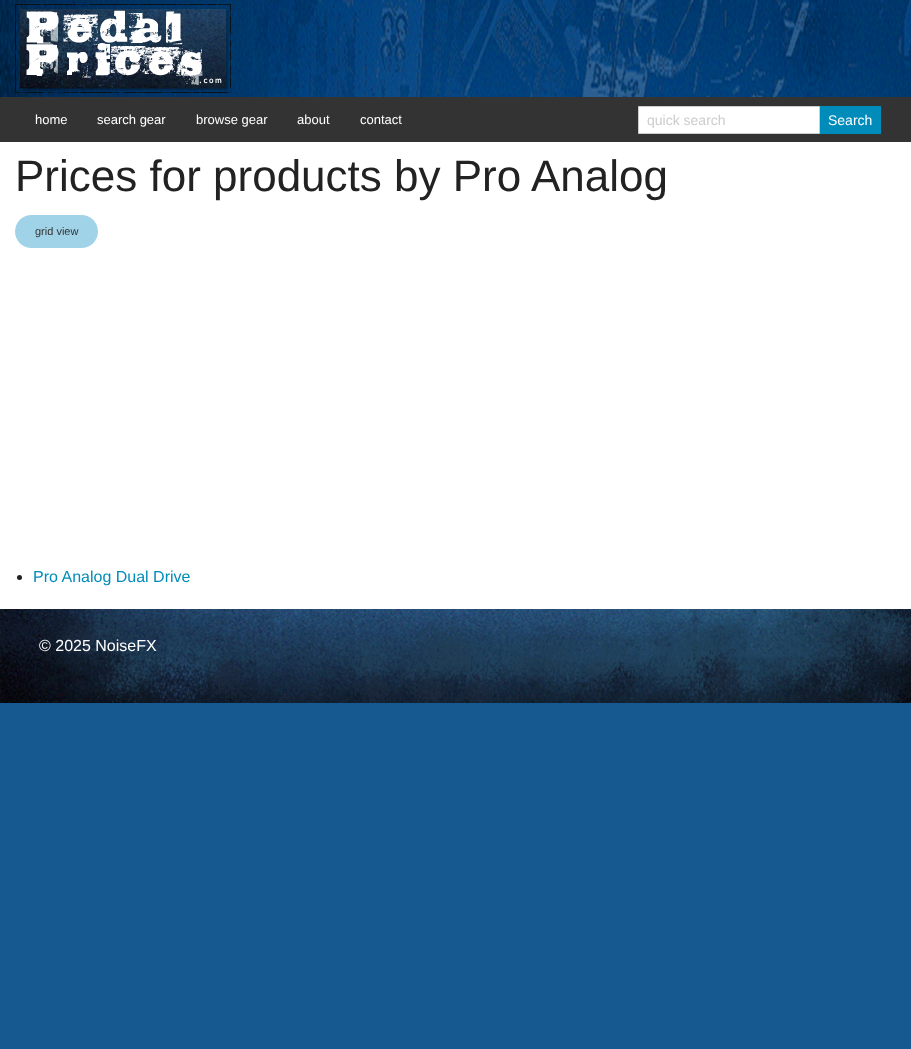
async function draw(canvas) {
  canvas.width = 911
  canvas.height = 1049
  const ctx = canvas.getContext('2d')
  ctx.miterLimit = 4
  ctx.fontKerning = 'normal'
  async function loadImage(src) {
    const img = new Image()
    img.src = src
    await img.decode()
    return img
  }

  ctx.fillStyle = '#165991'
  ctx.fillRect(0, 0, 911, 1049)
  ctx.drawImage(await loadImage('image0.png'), 0, 0, 911, 97)
  ctx.drawImage(await loadImage('image1.png'), 15, 4, 216, 89)
  ctx.fillStyle = '#333'
  ctx.fillRect(0, 97, 911, 45)
  ctx.font = '13px Liberation Sans'
  ctx.fillStyle = '#fff'
  ctx.fillText('home', 35, 124)
  ctx.fillText('search gear', 97, 124)
  ctx.fillText('browse gear', 196, 124)
  ctx.fillText('about', 297, 124)
  ctx.fillText('contact', 360, 124)
  ctx.beginPath()
  ctx.rect(638.5, 106.5, 181, 27)
  ctx.fill()
  ctx.strokeStyle = '#ccc'
  ctx.stroke()
  ctx.font = '14px Liberation Sans'
  ctx.fillStyle = '#ccc'
  ctx.fillText('quick search', 647, 125)
  ctx.fillStyle = '#008cba'
  ctx.fillRect(820, 106, 61, 28)
  ctx.fillStyle = '#fff'
  ctx.fillText('Search', 828, 125)
  ctx.fillRect(0, 142, 911, 467)
  ctx.font = '44px Liberation Sans'
  ctx.fillStyle = '#222'
  ctx.fillText('Prices for products by Pro Analog', 15, 191)
  ctx.fillStyle = '#a0d3e8'
  ctx.beginPath()
  ctx.roundRect(15, 215, 83, 33, 16.5)
  ctx.fill()
  ctx.font = '11px Liberation Sans'
  ctx.fillStyle = '#333'
  ctx.fillText('grid view', 35, 235)
  ctx.fillStyle = '#222'
  ctx.beginPath()
  ctx.arc(19.5, 577.5, 2.5, 0, 2 * Math.PI)
  ctx.fill()
  ctx.font = '16px Liberation Sans'
  ctx.fillStyle = '#008cba'
  ctx.fillText('Pro Analog Dual Drive', 33, 582)
  ctx.drawImage(await loadImage('image2.png'), 0, 609, 911, 94)
  ctx.fillStyle = '#fff'
  ctx.fillText('© 2025 NoiseFX', 39, 651)
}

draw(document.querySelector('canvas'))
